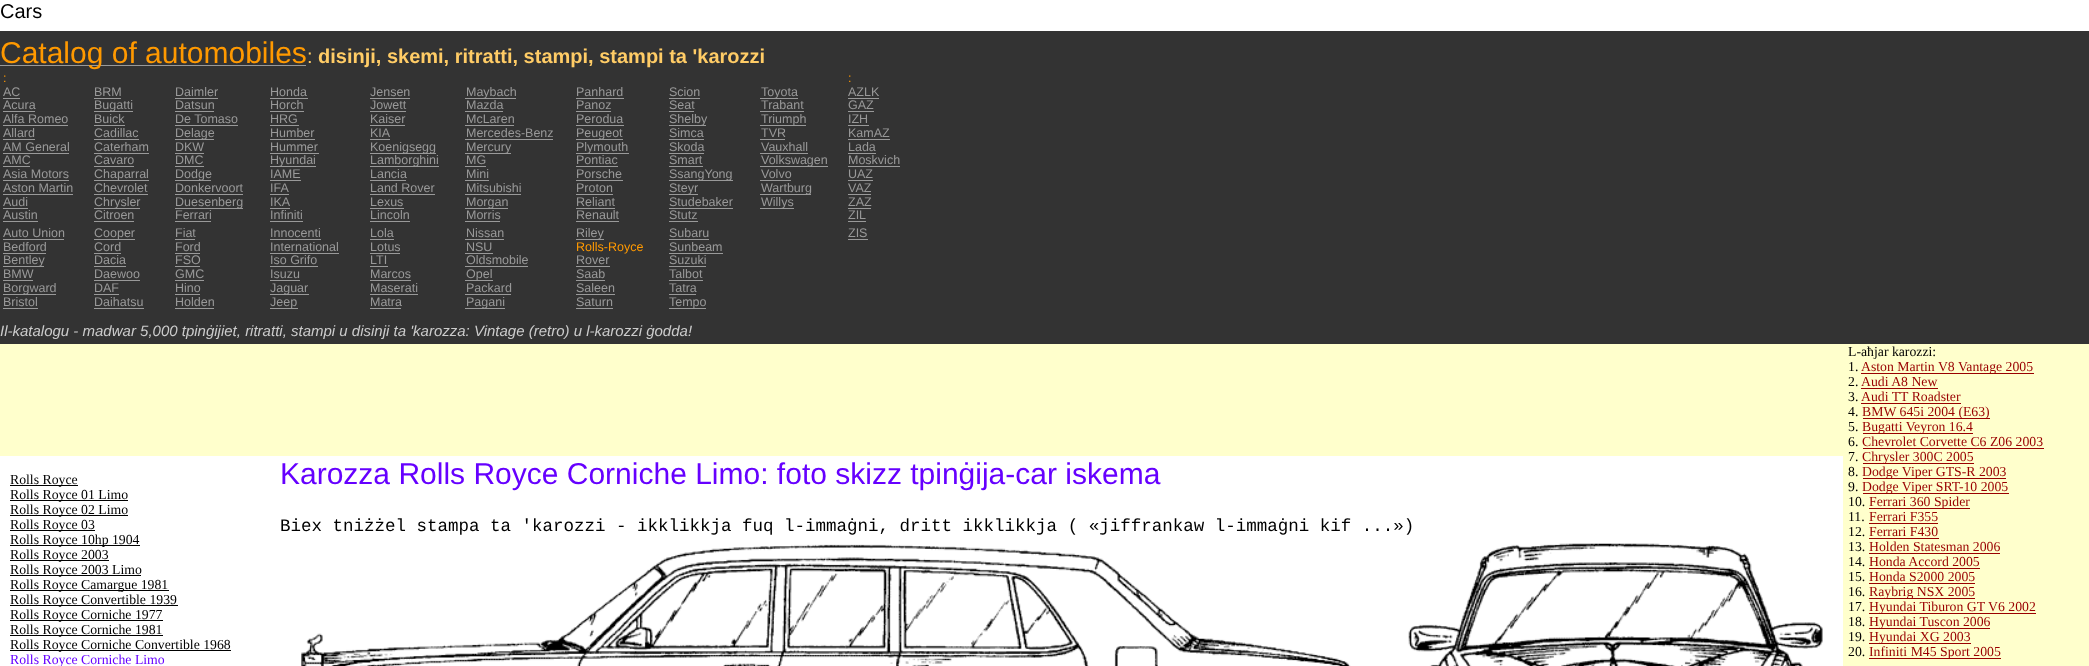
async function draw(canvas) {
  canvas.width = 2089
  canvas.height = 666
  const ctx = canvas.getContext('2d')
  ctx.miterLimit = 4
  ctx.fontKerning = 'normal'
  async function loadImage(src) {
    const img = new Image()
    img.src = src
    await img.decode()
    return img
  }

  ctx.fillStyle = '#fff'
  ctx.fillRect(0, 0, 2089, 666)
  ctx.font = '20px Liberation Sans'
  ctx.fillStyle = '#000'
  ctx.fillText('Cars', 0, 18)
  ctx.fillStyle = '#333'
  ctx.fillRect(0, 31, 2089, 313)
  ctx.fillStyle = '#999'
  ctx.fillRect(0, 65, 306, 1)
  ctx.font = '30px Liberation Sans'
  ctx.fillStyle = '#f90'
  ctx.fillText('Catalog of automobiles', 0, 63)
  ctx.font = '20px Liberation Sans'
  ctx.fillStyle = '#fc6'
  ctx.fillText(':', 307, 63)
  ctx.font = 'bold 20px Liberation Sans'
  ctx.fillText('disinji, skemi, ritratti, stampi, stampi ta \'karozzi', 318, 63)
  ctx.font = '12.5px Liberation Sans'
  ctx.fillStyle = '#f90'
  ctx.fillText(':', 3, 82)
  ctx.fillText(':', 848, 82)
  ctx.fillStyle = '#999'
  ctx.fillText('AC', 3, 96)
  ctx.fillRect(3, 98, 17, 1)
  ctx.fillText('BRM', 94, 96)
  ctx.fillRect(94, 98, 27, 1)
  ctx.fillText('Daimler', 175, 96)
  ctx.fillRect(175, 98, 43, 1)
  ctx.fillText('Honda', 270, 96)
  ctx.fillRect(270, 98, 38, 1)
  ctx.fillText('Jensen', 370, 96)
  ctx.fillRect(370, 98, 40, 1)
  ctx.fillRect(465, 98, 51, 1)
  ctx.fillText('Maybach', 466, 96)
  ctx.fillText('Panhard', 576, 96)
  ctx.fillRect(576, 98, 48, 1)
  ctx.fillText('Scion', 669, 96)
  ctx.fillRect(669, 98, 31, 1)
  ctx.fillRect(760, 98, 38, 1)
  ctx.fillText('Toyota', 761, 96)
  ctx.fillText('AZLK', 848, 96)
  ctx.fillRect(848, 98, 31, 1)
  ctx.fillText('Acura', 3, 109)
  ctx.fillRect(3, 111, 32, 1)
  ctx.fillRect(94, 111, 39, 1)
  ctx.fillText('Bugatti', 94, 109)
  ctx.fillText('Datsun', 175, 109)
  ctx.fillRect(175, 111, 39, 1)
  ctx.fillText('Horch', 270, 109)
  ctx.fillRect(270, 111, 34, 1)
  ctx.fillText('Jowett', 370, 109)
  ctx.fillRect(370, 111, 36, 1)
  ctx.fillText('Mazda', 466, 109)
  ctx.fillRect(465, 111, 38, 1)
  ctx.fillText('Panoz', 576, 109)
  ctx.fillRect(576, 111, 35, 1)
  ctx.fillText('Seat', 669, 109)
  ctx.fillRect(669, 111, 25, 1)
  ctx.fillText('Trabant', 761, 109)
  ctx.fillRect(760, 111, 44, 1)
  ctx.fillText('GAZ', 848, 109)
  ctx.fillRect(848, 111, 26, 1)
  ctx.fillText('Alfa Romeo', 3, 123)
  ctx.fillRect(3, 125, 65, 1)
  ctx.fillText('Buick', 94, 123)
  ctx.fillRect(94, 125, 31, 1)
  ctx.fillText('De Tomaso', 175, 123)
  ctx.fillRect(175, 125, 63, 1)
  ctx.fillText('HRG', 270, 123)
  ctx.fillRect(270, 125, 29, 1)
  ctx.fillText('Kaiser', 370, 123)
  ctx.fillRect(370, 125, 35, 1)
  ctx.fillText('McLaren', 466, 123)
  ctx.fillRect(465, 125, 49, 1)
  ctx.fillText('Perodua', 576, 123)
  ctx.fillRect(576, 125, 48, 1)
  ctx.fillRect(669, 125, 37, 1)
  ctx.fillText('Shelby', 669, 123)
  ctx.fillRect(760, 125, 46, 1)
  ctx.fillText('Triumph', 761, 123)
  ctx.fillText('IZH', 848, 123)
  ctx.fillRect(848, 125, 21, 1)
  ctx.fillText('Allard', 3, 137)
  ctx.fillRect(3, 139, 32, 1)
  ctx.fillText('Cadillac', 94, 137)
  ctx.fillRect(94, 139, 45, 1)
  ctx.fillRect(175, 139, 39, 1)
  ctx.fillText('Delage', 175, 137)
  ctx.fillText('Humber', 270, 137)
  ctx.fillRect(270, 139, 45, 1)
  ctx.fillText('KIA', 370, 137)
  ctx.fillRect(370, 139, 20, 1)
  ctx.fillText('Mercedes-Benz', 466, 137)
  ctx.fillRect(465, 139, 88, 1)
  ctx.fillRect(576, 139, 47, 1)
  ctx.fillText('Peugeot', 576, 137)
  ctx.fillText('Simca', 669, 137)
  ctx.fillRect(669, 139, 35, 1)
  ctx.fillText('TVR', 761, 137)
  ctx.fillRect(760, 139, 25, 1)
  ctx.fillText('KamAZ', 848, 137)
  ctx.fillRect(848, 139, 42, 1)
  ctx.fillText('AM General', 3, 151)
  ctx.fillRect(3, 153, 66, 1)
  ctx.fillText('Caterham', 94, 151)
  ctx.fillRect(94, 153, 55, 1)
  ctx.fillText('DKW', 175, 151)
  ctx.fillRect(175, 153, 29, 1)
  ctx.fillText('Hummer', 270, 151)
  ctx.fillRect(270, 153, 49, 1)
  ctx.fillRect(370, 153, 66, 1)
  ctx.fillText('Koenigsegg', 370, 151)
  ctx.fillRect(465, 153, 46, 1)
  ctx.fillText('Mercury', 466, 151)
  ctx.fillRect(576, 153, 53, 1)
  ctx.fillText('Plymouth', 576, 151)
  ctx.fillText('Skoda', 669, 151)
  ctx.fillRect(669, 153, 35, 1)
  ctx.fillText('Vauxhall', 761, 151)
  ctx.fillRect(760, 153, 48, 1)
  ctx.fillText('Lada', 848, 151)
  ctx.fillRect(848, 153, 28, 1)
  ctx.fillText('AMC', 3, 164)
  ctx.fillRect(3, 166, 27, 1)
  ctx.fillText('Cavaro', 94, 164)
  ctx.fillRect(94, 166, 40, 1)
  ctx.fillText('DMC', 175, 164)
  ctx.fillRect(175, 166, 29, 1)
  ctx.fillRect(270, 166, 46, 1)
  ctx.fillText('Hyundai', 270, 164)
  ctx.fillRect(370, 166, 69, 1)
  ctx.fillText('Lamborghini', 370, 164)
  ctx.fillText('MG', 466, 164)
  ctx.fillRect(465, 166, 21, 1)
  ctx.fillText('Pontiac', 576, 164)
  ctx.fillRect(576, 166, 42, 1)
  ctx.fillText('Smart', 669, 164)
  ctx.fillRect(669, 166, 34, 1)
  ctx.fillRect(760, 166, 68, 1)
  ctx.fillText('Volkswagen', 761, 164)
  ctx.fillText('Moskvich', 848, 164)
  ctx.fillRect(848, 166, 52, 1)
  ctx.fillText('Asia Motors', 3, 178)
  ctx.fillRect(3, 180, 66, 1)
  ctx.fillRect(94, 180, 55, 1)
  ctx.fillText('Chaparral', 94, 178)
  ctx.fillRect(175, 180, 36, 1)
  ctx.fillText('Dodge', 175, 178)
  ctx.fillText('IAME', 270, 178)
  ctx.fillRect(270, 180, 31, 1)
  ctx.fillText('Lancia', 370, 178)
  ctx.fillRect(370, 180, 36, 1)
  ctx.fillText('Mini', 466, 178)
  ctx.fillRect(465, 180, 24, 1)
  ctx.fillText('Porsche', 576, 178)
  ctx.fillRect(576, 180, 47, 1)
  ctx.fillRect(669, 180, 64, 1)
  ctx.fillText('SsangYong', 669, 178)
  ctx.fillText('Volvo', 761, 178)
  ctx.fillRect(760, 180, 31, 1)
  ctx.fillText('UAZ', 848, 178)
  ctx.fillRect(848, 180, 25, 1)
  ctx.fillText('Aston Martin', 3, 192)
  ctx.fillRect(3, 194, 70, 1)
  ctx.fillText('Chevrolet', 94, 192)
  ctx.fillRect(94, 194, 54, 1)
  ctx.fillText('Donkervoort', 175, 192)
  ctx.fillRect(175, 194, 68, 1)
  ctx.fillText('IFA', 270, 192)
  ctx.fillRect(270, 194, 19, 1)
  ctx.fillText('Land Rover', 370, 192)
  ctx.fillRect(370, 194, 65, 1)
  ctx.fillText('Mitsubishi', 466, 192)
  ctx.fillRect(465, 194, 56, 1)
  ctx.fillText('Proton', 576, 192)
  ctx.fillRect(576, 194, 37, 1)
  ctx.fillRect(669, 194, 29, 1)
  ctx.fillText('Steyr', 669, 192)
  ctx.fillRect(760, 194, 51, 1)
  ctx.fillText('Wartburg', 761, 192)
  ctx.fillText('VAZ', 848, 192)
  ctx.fillRect(848, 194, 23, 1)
  ctx.fillText('Audi', 3, 206)
  ctx.fillRect(3, 208, 25, 1)
  ctx.fillRect(94, 208, 46, 1)
  ctx.fillText('Chrysler', 94, 206)
  ctx.fillRect(175, 208, 68, 1)
  ctx.fillText('Duesenberg', 175, 206)
  ctx.fillText('IKA', 270, 206)
  ctx.fillRect(270, 208, 20, 1)
  ctx.fillText('Lexus', 370, 206)
  ctx.fillRect(370, 208, 34, 1)
  ctx.fillRect(465, 208, 43, 1)
  ctx.fillText('Morgan', 466, 206)
  ctx.fillText('Reliant', 576, 206)
  ctx.fillRect(576, 208, 39, 1)
  ctx.fillText('Studebaker', 669, 206)
  ctx.fillRect(669, 208, 64, 1)
  ctx.fillRect(760, 208, 34, 1)
  ctx.fillText('Willys', 761, 206)
  ctx.fillText('ZAZ', 848, 206)
  ctx.fillRect(848, 208, 23, 1)
  ctx.fillText('Austin', 3, 219)
  ctx.fillRect(3, 221, 35, 1)
  ctx.fillText('Citroen', 94, 219)
  ctx.fillRect(94, 221, 40, 1)
  ctx.fillText('Ferrari', 175, 219)
  ctx.fillRect(175, 221, 36, 1)
  ctx.fillText('Infiniti', 270, 219)
  ctx.fillRect(270, 221, 33, 1)
  ctx.fillText('Lincoln', 370, 219)
  ctx.fillRect(370, 221, 40, 1)
  ctx.fillText('Morris', 466, 219)
  ctx.fillRect(465, 221, 35, 1)
  ctx.fillText('Renault', 576, 219)
  ctx.fillRect(576, 221, 43, 1)
  ctx.fillText('Stutz', 669, 219)
  ctx.fillRect(669, 221, 29, 1)
  ctx.fillText('ZIL', 848, 219)
  ctx.fillRect(848, 221, 18, 1)
  ctx.fillText('Auto Union', 3, 237)
  ctx.fillRect(3, 239, 61, 1)
  ctx.fillRect(94, 239, 41, 1)
  ctx.fillText('Cooper', 94, 237)
  ctx.fillText('Fiat', 175, 237)
  ctx.fillRect(175, 239, 20, 1)
  ctx.fillText('Innocenti', 270, 237)
  ctx.fillRect(270, 239, 51, 1)
  ctx.fillText('Lola', 370, 237)
  ctx.fillRect(370, 239, 24, 1)
  ctx.fillText('Nissan', 466, 237)
  ctx.fillRect(465, 239, 39, 1)
  ctx.fillRect(576, 239, 28, 1)
  ctx.fillText('Riley', 576, 237)
  ctx.fillText('Subaru', 669, 237)
  ctx.fillRect(669, 239, 40, 1)
  ctx.fillText('ZIS', 848, 237)
  ctx.fillRect(848, 239, 20, 1)
  ctx.fillText('Bedford', 3, 251)
  ctx.fillRect(3, 253, 43, 1)
  ctx.fillText('Cord', 94, 251)
  ctx.fillRect(94, 253, 27, 1)
  ctx.fillText('Ford', 175, 251)
  ctx.fillRect(175, 253, 25, 1)
  ctx.fillText('International', 270, 251)
  ctx.fillRect(270, 253, 69, 1)
  ctx.fillText('Lotus', 370, 251)
  ctx.fillRect(370, 253, 30, 1)
  ctx.fillText('NSU', 466, 251)
  ctx.fillRect(465, 253, 28, 1)
  ctx.fillStyle = '#f90'
  ctx.fillText('Rolls-Royce', 576, 251)
  ctx.fillStyle = '#999'
  ctx.fillText('Sunbeam', 669, 251)
  ctx.fillRect(669, 253, 54, 1)
  ctx.fillRect(3, 266, 41, 1)
  ctx.fillText('Bentley', 3, 264)
  ctx.fillText('Dacia', 94, 264)
  ctx.fillRect(94, 266, 32, 1)
  ctx.fillText('FSO', 175, 264)
  ctx.fillRect(175, 266, 25, 1)
  ctx.fillText('Iso Grifo', 270, 264)
  ctx.fillRect(270, 266, 48, 1)
  ctx.fillText('LTI', 370, 264)
  ctx.fillRect(370, 266, 18, 1)
  ctx.fillText('Oldsmobile', 466, 264)
  ctx.fillRect(465, 266, 63, 1)
  ctx.fillText('Rover', 576, 264)
  ctx.fillRect(576, 266, 34, 1)
  ctx.fillText('Suzuki', 669, 264)
  ctx.fillRect(669, 266, 37, 1)
  ctx.fillText('BMW', 3, 278)
  ctx.fillRect(3, 280, 30, 1)
  ctx.fillText('Daewoo', 94, 278)
  ctx.fillRect(94, 280, 46, 1)
  ctx.fillText('GMC', 175, 278)
  ctx.fillRect(175, 280, 29, 1)
  ctx.fillText('Isuzu', 270, 278)
  ctx.fillRect(270, 280, 30, 1)
  ctx.fillText('Marcos', 370, 278)
  ctx.fillRect(370, 280, 41, 1)
  ctx.fillRect(465, 280, 28, 1)
  ctx.fillText('Opel', 466, 278)
  ctx.fillText('Saab', 576, 278)
  ctx.fillRect(576, 280, 29, 1)
  ctx.fillText('Talbot', 669, 278)
  ctx.fillRect(669, 280, 34, 1)
  ctx.fillRect(3, 294, 53, 1)
  ctx.fillText('Borgward', 3, 292)
  ctx.fillText('DAF', 94, 292)
  ctx.fillRect(94, 294, 25, 1)
  ctx.fillText('Hino', 175, 292)
  ctx.fillRect(175, 294, 25, 1)
  ctx.fillRect(270, 294, 39, 1)
  ctx.fillText('Jaguar', 270, 292)
  ctx.fillText('Maserati', 370, 292)
  ctx.fillRect(370, 294, 48, 1)
  ctx.fillText('Packard', 466, 292)
  ctx.fillRect(465, 294, 46, 1)
  ctx.fillText('Saleen', 576, 292)
  ctx.fillRect(576, 294, 39, 1)
  ctx.fillText('Tatra', 669, 292)
  ctx.fillRect(669, 294, 27, 1)
  ctx.fillText('Bristol', 3, 306)
  ctx.fillRect(3, 308, 35, 1)
  ctx.fillText('Daihatsu', 94, 306)
  ctx.fillRect(94, 308, 50, 1)
  ctx.fillText('Holden', 175, 306)
  ctx.fillRect(175, 308, 39, 1)
  ctx.fillRect(270, 308, 28, 1)
  ctx.fillText('Jeep', 270, 306)
  ctx.fillText('Matra', 370, 306)
  ctx.fillRect(370, 308, 31, 1)
  ctx.fillRect(465, 308, 40, 1)
  ctx.fillText('Pagani', 466, 306)
  ctx.fillText('Saturn', 576, 306)
  ctx.fillRect(576, 308, 37, 1)
  ctx.fillRect(669, 308, 37, 1)
  ctx.fillText('Tempo', 669, 306)
  ctx.font = 'italic 15px Liberation Sans'
  ctx.fillStyle = '#ccc'
  ctx.fillText('Il-katalogu - madwar 5,000 tpinġijiet, ritratti, stampi u disinji ta \'karozza: Vintage (retro) u l-karozzi ġodda!', 0, 336)
  ctx.fillStyle = '#000'
  ctx.fillRect(10, 485, 68, 1)
  ctx.font = '13.75px Liberation Serif'
  ctx.fillText('Rolls Royce', 10, 484)
  ctx.fillRect(10, 500, 118, 1)
  ctx.fillText('Rolls Royce 01 Limo', 10, 499)
  ctx.fillRect(10, 515, 118, 1)
  ctx.fillText('Rolls Royce 02 Limo', 10, 514)
  ctx.fillRect(10, 530, 85, 1)
  ctx.fillText('Rolls Royce 03', 10, 529)
  ctx.fillRect(10, 545, 130, 1)
  ctx.fillText('Rolls Royce 10hp 1904', 10, 544)
  ctx.fillRect(10, 560, 99, 1)
  ctx.fillText('Rolls Royce 2003', 10, 559)
  ctx.fillRect(10, 575, 131, 1)
  ctx.fillText('Rolls Royce 2003 Limo', 10, 574)
  ctx.fillRect(10, 590, 159, 1)
  ctx.fillText('Rolls Royce Camargue 1981', 10, 589)
  ctx.fillRect(10, 605, 168, 1)
  ctx.fillText('Rolls Royce Convertible 1939', 10, 604)
  ctx.fillRect(10, 620, 153, 1)
  ctx.fillText('Rolls Royce Corniche 1977', 10, 619)
  ctx.fillRect(10, 635, 153, 1)
  ctx.fillText('Rolls Royce Corniche 1981', 10, 634)
  ctx.fillRect(10, 650, 221, 1)
  ctx.fillText('Rolls Royce Corniche Convertible 1968', 10, 649)
  ctx.fillStyle = '#60f'
  ctx.fillText('Rolls Royce Corniche Limo', 10, 664)
  ctx.font = '30px Liberation Sans'
  ctx.fillText('Karozza Rolls Royce Corniche Limo: foto skizz tpinġija-car iskema', 280, 484)
  ctx.font = '17.5px Liberation Mono'
  ctx.fillStyle = '#000'
  ctx.fillText('Biex tniżżel stampa ta \'karozzi - ikklikkja fuq l-immaġni, dritt ikklikkja ( «jiffrankaw l-immaġni kif ...»)', 280, 531)
  ctx.drawImage(await loadImage('image0.png'), 301, 543, 1522, 123)
  ctx.fillStyle = '#ffc'
  ctx.fillRect(0, 344, 1843, 112)
  ctx.fillRect(1843, 344, 246, 322)
  ctx.font = '13.75px Liberation Serif'
  ctx.fillStyle = '#000'
  ctx.fillText('L-aħjar karozzi:', 1848, 356)
  ctx.fillText('1.', 1848, 371)
  ctx.fillStyle = '#900'
  ctx.fillRect(1861, 373, 173, 1)
  ctx.fillText('Aston Martin V8 Vantage 2005', 1861, 371)
  ctx.fillStyle = '#000'
  ctx.fillText('2.', 1848, 386)
  ctx.fillStyle = '#900'
  ctx.fillText('Audi A8 New', 1861, 386)
  ctx.fillRect(1861, 388, 77, 1)
  ctx.fillStyle = '#000'
  ctx.fillText('3.', 1848, 401)
  ctx.fillStyle = '#900'
  ctx.fillText('Audi TT Roadster', 1861, 401)
  ctx.fillRect(1861, 403, 100, 1)
  ctx.fillStyle = '#000'
  ctx.fillText('4.', 1848, 416)
  ctx.fillStyle = '#900'
  ctx.fillRect(1863, 418, 127, 1)
  ctx.fillText('BMW 645i 2004 (E63)', 1862, 416)
  ctx.fillStyle = '#000'
  ctx.fillText('5.', 1848, 431)
  ctx.fillStyle = '#900'
  ctx.fillRect(1863, 433, 110, 1)
  ctx.fillText('Bugatti Veyron 16.4', 1862, 431)
  ctx.fillStyle = '#000'
  ctx.fillText('6.', 1848, 446)
  ctx.fillStyle = '#900'
  ctx.fillText('Chevrolet Corvette C6 Z06 2003', 1862, 446)
  ctx.fillRect(1863, 448, 181, 1)
  ctx.fillStyle = '#000'
  ctx.fillText('7.', 1848, 461)
  ctx.fillStyle = '#900'
  ctx.fillRect(1863, 463, 111, 1)
  ctx.fillText('Chrysler 300C 2005', 1862, 461)
  ctx.fillStyle = '#000'
  ctx.fillText('8.', 1848, 476)
  ctx.fillStyle = '#900'
  ctx.fillRect(1863, 478, 143, 1)
  ctx.fillText('Dodge Viper GTS-R 2003', 1862, 476)
  ctx.fillStyle = '#000'
  ctx.fillText('9.', 1848, 491)
  ctx.fillStyle = '#900'
  ctx.fillRect(1863, 493, 146, 1)
  ctx.fillText('Dodge Viper SRT-10 2005', 1862, 491)
  ctx.fillStyle = '#000'
  ctx.fillText('10.', 1848, 506)
  ctx.fillStyle = '#900'
  ctx.fillRect(1869, 508, 101, 1)
  ctx.fillText('Ferrari 360 Spider', 1869, 506)
  ctx.fillStyle = '#000'
  ctx.fillText('11.', 1848, 521)
  ctx.fillStyle = '#900'
  ctx.fillText('Ferrari F355', 1869, 521)
  ctx.fillRect(1869, 523, 69, 1)
  ctx.fillStyle = '#000'
  ctx.fillText('12.', 1848, 536)
  ctx.fillStyle = '#900'
  ctx.fillText('Ferrari F430', 1869, 536)
  ctx.fillRect(1869, 538, 70, 1)
  ctx.fillStyle = '#000'
  ctx.fillText('13.', 1848, 551)
  ctx.fillStyle = '#900'
  ctx.fillText('Holden Statesman 2006', 1869, 551)
  ctx.fillRect(1869, 553, 131, 1)
  ctx.fillStyle = '#000'
  ctx.fillText('14.', 1848, 566)
  ctx.fillStyle = '#900'
  ctx.fillText('Honda Accord 2005', 1869, 566)
  ctx.fillRect(1869, 568, 111, 1)
  ctx.fillStyle = '#000'
  ctx.fillText('15.', 1848, 581)
  ctx.fillStyle = '#900'
  ctx.fillText('Honda S2000 2005', 1869, 581)
  ctx.fillRect(1869, 583, 106, 1)
  ctx.fillStyle = '#000'
  ctx.fillText('16.', 1848, 596)
  ctx.fillStyle = '#900'
  ctx.fillRect(1869, 598, 106, 1)
  ctx.fillText('Raybrig NSX 2005', 1869, 596)
  ctx.fillStyle = '#000'
  ctx.fillText('17.', 1848, 611)
  ctx.fillStyle = '#900'
  ctx.fillRect(1869, 613, 167, 1)
  ctx.fillText('Hyundai Tiburon GT V6 2002', 1869, 611)
  ctx.fillStyle = '#000'
  ctx.fillText('18.', 1848, 626)
  ctx.fillStyle = '#900'
  ctx.fillRect(1869, 628, 121, 1)
  ctx.fillText('Hyundai Tuscon 2006', 1869, 626)
  ctx.fillStyle = '#000'
  ctx.fillText('19.', 1848, 641)
  ctx.fillStyle = '#900'
  ctx.fillRect(1869, 643, 102, 1)
  ctx.fillText('Hyundai XG 2003', 1869, 641)
  ctx.fillStyle = '#000'
  ctx.fillText('20.', 1848, 656)
  ctx.fillStyle = '#900'
  ctx.fillRect(1869, 658, 132, 1)
  ctx.fillText('Infiniti M45 Sport 2005', 1869, 656)
}

draw(document.querySelector('canvas'))
